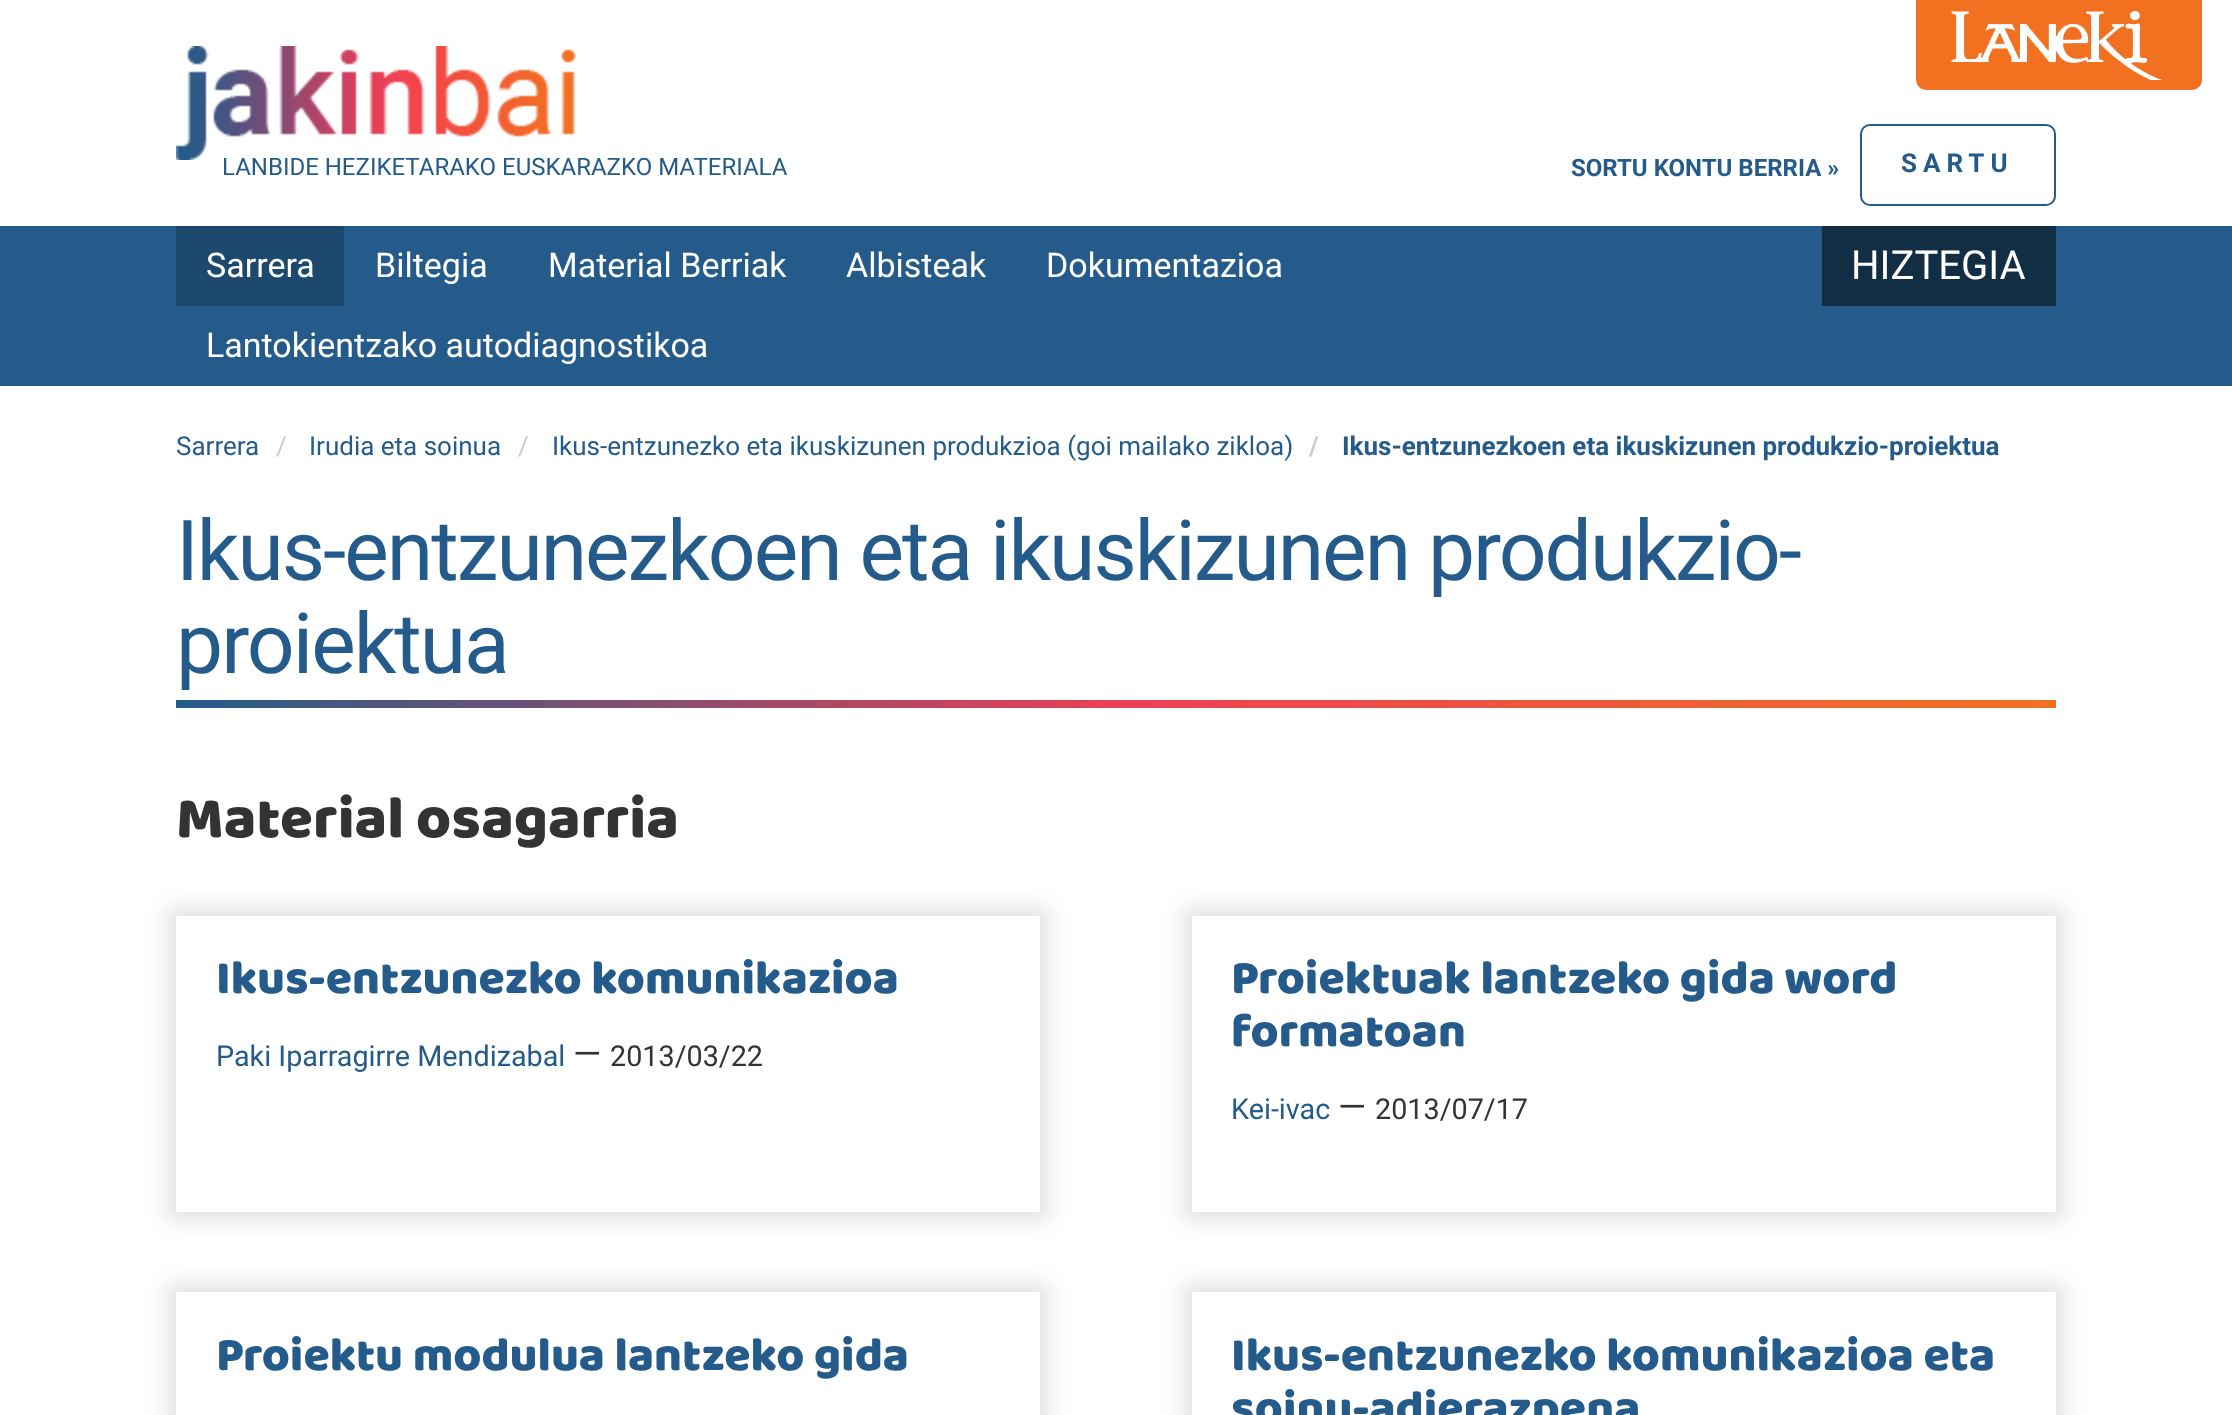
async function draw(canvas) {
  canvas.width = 2232
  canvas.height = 1415
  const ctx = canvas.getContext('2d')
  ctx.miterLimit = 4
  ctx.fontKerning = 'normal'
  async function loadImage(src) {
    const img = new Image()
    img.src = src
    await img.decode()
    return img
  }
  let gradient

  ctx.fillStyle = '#fff'
  ctx.fillRect(0, 0, 2232, 1415)
  ctx.fillStyle = '#f27121'
  ctx.beginPath()
  ctx.roundRect(1916, 0, 286, 90, [0, 0, 10, 10])
  ctx.fill()
  ctx.drawImage(await loadImage('image0.png'), 1951, 10, 212, 70)
  ctx.drawImage(await loadImage('image1.png'), 176, 46, 400, 114)
  ctx.font = '24px Roboto'
  ctx.fillStyle = '#245b8a'
  ctx.fillText('LANBIDE HEZIKETARAKO EUSKARAZKO MATERIALA', 222, 175)
  ctx.font = 'bold 24px Roboto'
  ctx.fillText('SORTU KONTU BERRIA »', 1571, 176)
  ctx.beginPath()
  ctx.roundRect(1861, 125, 194, 80, 9)
  ctx.strokeStyle = '#245b8a'
  ctx.lineWidth = 2
  ctx.stroke()
  ctx.letterSpacing = '6px'
  ctx.font = 'bold 26px Roboto'
  ctx.fillText('SARTU', 1901, 172)
  ctx.fillRect(0, 226, 2232, 160)
  ctx.fillStyle = '#1d496e'
  ctx.fillRect(176, 226, 168, 80)
  ctx.letterSpacing = '0px'
  ctx.font = '34px Roboto'
  ctx.fillStyle = '#fff'
  ctx.fillText('Sarrera', 206, 277)
  ctx.fillText('Biltegia', 375, 277)
  ctx.fillText('Material Berriak', 548, 277)
  ctx.fillText('Albisteak', 846, 277)
  ctx.fillText('Dokumentazioa', 1046, 277)
  ctx.fillStyle = '#122e45'
  ctx.fillRect(1822, 226, 234, 80)
  ctx.font = '40px Roboto'
  ctx.fillStyle = '#fff'
  ctx.fillText('HIZTEGIA', 1851, 279)
  ctx.font = '34px Roboto'
  ctx.fillText('Lantokientzako autodiagnostikoa', 206, 357)
  ctx.font = '26px Roboto'
  ctx.fillStyle = '#245b8a'
  ctx.fillText('Sarrera', 176, 455)
  ctx.fillStyle = '#ccc'
  ctx.fillText('/', 276, 455)
  ctx.fillStyle = '#245b8a'
  ctx.fillText('Irudia eta soinua', 309, 455)
  ctx.fillStyle = '#ccc'
  ctx.fillText('/', 518, 455)
  ctx.fillStyle = '#245b8a'
  ctx.fillText('Ikus-entzunezko eta ikuskizunen produkzioa (goi mailako zikloa)', 552, 455)
  ctx.font = 'bold 26px Roboto'
  ctx.fillStyle = '#ccc'
  ctx.fillText('/', 1309, 455)
  ctx.fillStyle = '#245b8a'
  ctx.fillText('Ikus-entzunezkoen eta ikuskizunen produkzio-proiektua', 1342, 455)
  ctx.letterSpacing = '-2px'
  ctx.font = '84px Roboto'
  ctx.fillText('Ikus-entzunezkoen eta ikuskizunen produkzio-', 176, 580)
  ctx.fillText('proiektua', 176, 673)
  gradient = ctx.createLinearGradient(176, 704, 2056, 704)
  gradient.addColorStop(0, '#235c8a')
  gradient.addColorStop(0.5, '#e94056')
  gradient.addColorStop(1, '#f27121')
  ctx.fillStyle = gradient
  ctx.fillRect(176, 700, 1880, 8)
  ctx.letterSpacing = '0px'
  ctx.font = '60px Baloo'
  ctx.fillStyle = '#333'
  ctx.fillText('Material osagarria', 176, 837)
  ctx.save()
  ctx.beginPath()
  ctx.moveTo(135, 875)
  ctx.lineTo(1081, 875)
  ctx.lineTo(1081, 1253)
  ctx.lineTo(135, 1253)
  ctx.closePath()
  ctx.moveTo(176, 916)
  ctx.lineTo(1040, 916)
  ctx.lineTo(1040, 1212)
  ctx.lineTo(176, 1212)
  ctx.closePath()
  ctx.clip('evenodd')
  ctx.fillStyle = '#0000001a'
  ctx.filter = 'blur(10px)'
  ctx.beginPath()
  ctx.rect(166, 906, 884, 316)
  ctx.fill()
  ctx.filter = 'none'
  ctx.restore()
  ctx.font = '48px Baloo'
  ctx.fillStyle = '#245b8a'
  ctx.fillText('Ikus-entzunezko komunikazioa', 216, 993)
  ctx.font = '28.75px Roboto'
  ctx.fillText('Paki Iparragirre Mendizabal', 216, 1066)
  ctx.font = '36px Roboto'
  ctx.fillStyle = '#333'
  ctx.fillText('—', 573, 1066)
  ctx.font = '28.75px Roboto'
  ctx.fillText('2013/03/22', 610, 1066)
  ctx.save()
  ctx.beginPath()
  ctx.moveTo(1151, 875)
  ctx.lineTo(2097, 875)
  ctx.lineTo(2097, 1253)
  ctx.lineTo(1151, 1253)
  ctx.closePath()
  ctx.moveTo(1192, 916)
  ctx.lineTo(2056, 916)
  ctx.lineTo(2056, 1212)
  ctx.lineTo(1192, 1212)
  ctx.closePath()
  ctx.clip('evenodd')
  ctx.fillStyle = '#0000001a'
  ctx.filter = 'blur(10px)'
  ctx.beginPath()
  ctx.rect(1182, 906, 884, 316)
  ctx.fill()
  ctx.filter = 'none'
  ctx.restore()
  ctx.font = '48px Baloo'
  ctx.fillStyle = '#245b8a'
  ctx.fillText('Proiektuak lantzeko gida word', 1231, 993)
  ctx.fillText('formatoan', 1231, 1046)
  ctx.font = '28.75px Roboto'
  ctx.fillText('Kei-ivac', 1231, 1119)
  ctx.font = '36px Roboto'
  ctx.fillStyle = '#333'
  ctx.fillText('—', 1338, 1119)
  ctx.font = '28.75px Roboto'
  ctx.fillText('2013/07/17', 1375, 1119)
  ctx.save()
  ctx.beginPath()
  ctx.moveTo(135, 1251)
  ctx.lineTo(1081, 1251)
  ctx.lineTo(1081, 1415)
  ctx.lineTo(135, 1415)
  ctx.closePath()
  ctx.moveTo(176, 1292)
  ctx.lineTo(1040, 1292)
  ctx.lineTo(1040, 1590)
  ctx.lineTo(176, 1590)
  ctx.closePath()
  ctx.clip('evenodd')
  ctx.fillStyle = '#0000001a'
  ctx.filter = 'blur(10px)'
  ctx.beginPath()
  ctx.rect(166, 1282, 884, 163)
  ctx.fill()
  ctx.filter = 'none'
  ctx.restore()
  ctx.font = '48px Baloo'
  ctx.fillStyle = '#245b8a'
  ctx.fillText('Proiektu modulua lantzeko gida', 216, 1370)
  ctx.save()
  ctx.beginPath()
  ctx.moveTo(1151, 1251)
  ctx.lineTo(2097, 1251)
  ctx.lineTo(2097, 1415)
  ctx.lineTo(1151, 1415)
  ctx.closePath()
  ctx.moveTo(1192, 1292)
  ctx.lineTo(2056, 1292)
  ctx.lineTo(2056, 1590)
  ctx.lineTo(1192, 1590)
  ctx.closePath()
  ctx.clip('evenodd')
  ctx.fillStyle = '#0000001a'
  ctx.filter = 'blur(10px)'
  ctx.beginPath()
  ctx.rect(1182, 1282, 884, 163)
  ctx.fill()
  ctx.filter = 'none'
  ctx.restore()
  ctx.fillText('Ikus-entzunezko komunikazioa eta', 1231, 1370)
  ctx.fillText('soinu-adierazpena', 1231, 1423)
}

draw(document.querySelector('canvas'))
